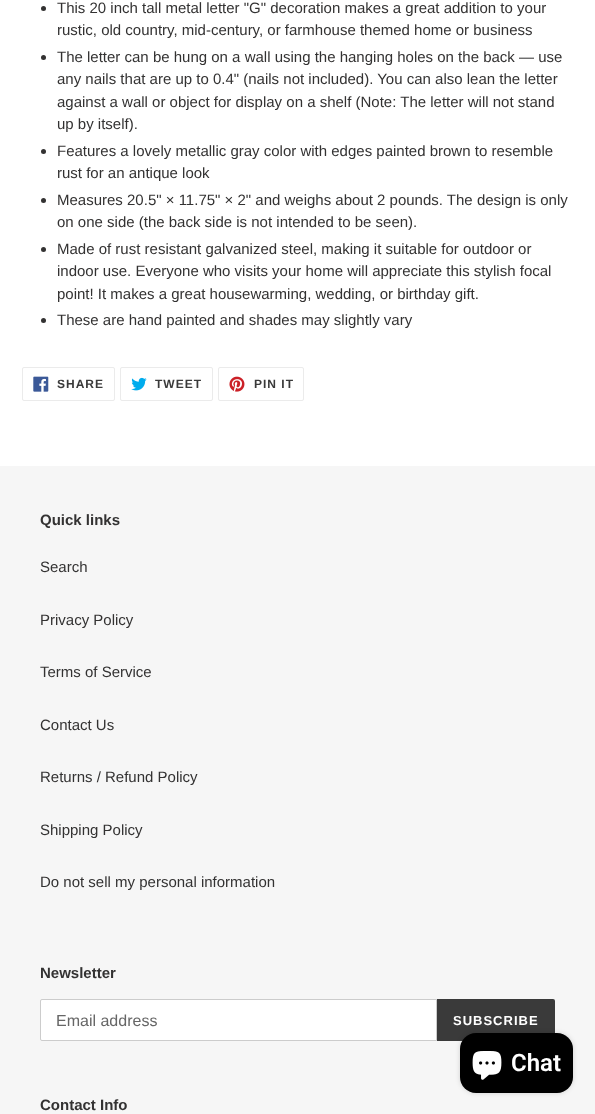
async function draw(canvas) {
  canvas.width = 595
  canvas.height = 1114
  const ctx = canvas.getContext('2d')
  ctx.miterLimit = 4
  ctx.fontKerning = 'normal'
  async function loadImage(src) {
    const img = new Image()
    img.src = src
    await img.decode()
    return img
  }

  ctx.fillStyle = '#fff'
  ctx.fillRect(0, 0, 595, 1114)
  ctx.fillStyle = '#333232'
  ctx.beginPath()
  ctx.arc(43.5, 8.5, 2.5, 0, 2 * Math.PI)
  ctx.fill()
  ctx.font = '15px Liberation Sans'
  ctx.fillText('This 20 inch tall metal letter "G" decoration makes a great addition to your', 57, 13)
  ctx.fillText('rustic, old country, mid-century, or farmhouse themed home or business', 57, 35)
  ctx.beginPath()
  ctx.arc(43.5, 57.5, 2.5, 0, 2 * Math.PI)
  ctx.fill()
  ctx.fillText('The letter can be hung on a wall using the hanging holes on the back — use', 57, 62)
  ctx.fillText('any nails that are up to 0.4" (nails not included). You can also lean the letter', 57, 84)
  ctx.fillText('against a wall or object for display on a shelf (Note: The letter will not stand', 57, 107)
  ctx.fillText('up by itself).', 57, 129)
  ctx.beginPath()
  ctx.arc(43.5, 151.5, 2.5, 0, 2 * Math.PI)
  ctx.fill()
  ctx.fillText('Features a lovely metallic gray color with edges painted brown to resemble', 57, 156)
  ctx.fillText('rust for an antique look', 57, 178)
  ctx.beginPath()
  ctx.arc(43.5, 200.5, 2.5, 0, 2 * Math.PI)
  ctx.fill()
  ctx.fillText('Measures 20.5" × 11.75" × 2" and weighs about 2 pounds. The design is only', 57, 205)
  ctx.fillText('on one side (the back side is not intended to be seen).', 57, 227)
  ctx.beginPath()
  ctx.arc(43.5, 249.5, 2.5, 0, 2 * Math.PI)
  ctx.fill()
  ctx.fillText('Made of rust resistant galvanized steel, making it suitable for outdoor or', 57, 254)
  ctx.fillText('indoor use. Everyone who visits your home will appreciate this stylish focal', 57, 276)
  ctx.fillText('point! It makes a great housewarming, wedding, or birthday gift.', 57, 299)
  ctx.beginPath()
  ctx.arc(43.5, 320.5, 2.5, 0, 2 * Math.PI)
  ctx.fill()
  ctx.fillText('These are hand painted and shades may slightly vary', 57, 325)
  ctx.beginPath()
  ctx.roundRect(22.5, 367.5, 92, 33, 1.5)
  ctx.strokeStyle = '#ebebeb'
  ctx.stroke()
  ctx.drawImage(await loadImage('image0.png'), 33, 376, 16, 16)
  ctx.letterSpacing = '1px'
  ctx.font = 'bold 12px Liberation Sans'
  ctx.fillStyle = '#3a3a3a'
  ctx.fillText('SHARE', 57, 388)
  ctx.beginPath()
  ctx.roundRect(120.5, 367.5, 92, 33, 1.5)
  ctx.stroke()
  ctx.drawImage(await loadImage('image1.png'), 131, 377, 16, 14)
  ctx.fillText('TWEET', 155, 388)
  ctx.beginPath()
  ctx.roundRect(218.5, 367.5, 85, 33, 1.5)
  ctx.stroke()
  ctx.drawImage(await loadImage('image2.png'), 229, 376, 16, 16)
  ctx.fillText('PIN IT', 254, 388)
  ctx.fillStyle = '#f6f6f6'
  ctx.fillRect(0, 466, 595, 648)
  ctx.letterSpacing = '0px'
  ctx.font = 'bold 15px Liberation Sans'
  ctx.fillStyle = '#333232'
  ctx.fillText('Quick links', 40, 525)
  ctx.font = '15px Liberation Sans'
  ctx.fillText('Search', 40, 572)
  ctx.fillText('Privacy Policy', 40, 625)
  ctx.fillText('Terms of Service', 40, 677)
  ctx.fillText('Contact Us', 40, 730)
  ctx.fillText('Returns / Refund Policy', 40, 782)
  ctx.fillText('Shipping Policy', 40, 835)
  ctx.fillText('Do not sell my personal information', 40, 887)
  ctx.font = 'bold 15px Liberation Sans'
  ctx.fillText('Newsletter', 40, 978)
  ctx.fillStyle = '#fff'
  ctx.beginPath()
  ctx.roundRect(40.5, 999.5, 396, 41, [1.5, 0, 0, 1.5])
  ctx.fill()
  ctx.strokeStyle = '#ccc'
  ctx.stroke()
  ctx.font = '16px Liberation Sans'
  ctx.fillStyle = '#666'
  ctx.fillText('Email address', 56, 1026)
  ctx.fillStyle = '#3a3a3a'
  ctx.beginPath()
  ctx.roundRect(437, 999, 118, 42, [0, 2, 2, 0])
  ctx.fill()
  ctx.letterSpacing = '1px'
  ctx.font = 'bold 13px Liberation Sans'
  ctx.fillStyle = '#fff'
  ctx.fillText('SUBSCRIBE', 453, 1025)
  ctx.letterSpacing = '0px'
  ctx.font = 'bold 15px Liberation Sans'
  ctx.fillStyle = '#333232'
  ctx.fillText('Contact Info', 40, 1110)
  ctx.fillStyle = '#00000026'
  ctx.filter = 'blur(2.5px)'
  ctx.beginPath()
  ctx.roundRect(460, 1033, 113, 60, 16)
  ctx.fill()
  ctx.filter = 'none'
  ctx.fillStyle = '#000'
  ctx.beginPath()
  ctx.roundRect(460, 1033, 113, 60, 16)
  ctx.fill()
  ctx.drawImage(await loadImage('image3.png'), 472, 1051, 30, 29)
  ctx.font = '600 24px Roboto'
  ctx.fillStyle = '#fff'
  ctx.fillText('Chat', 511, 1071)
}

draw(document.querySelector('canvas'))
